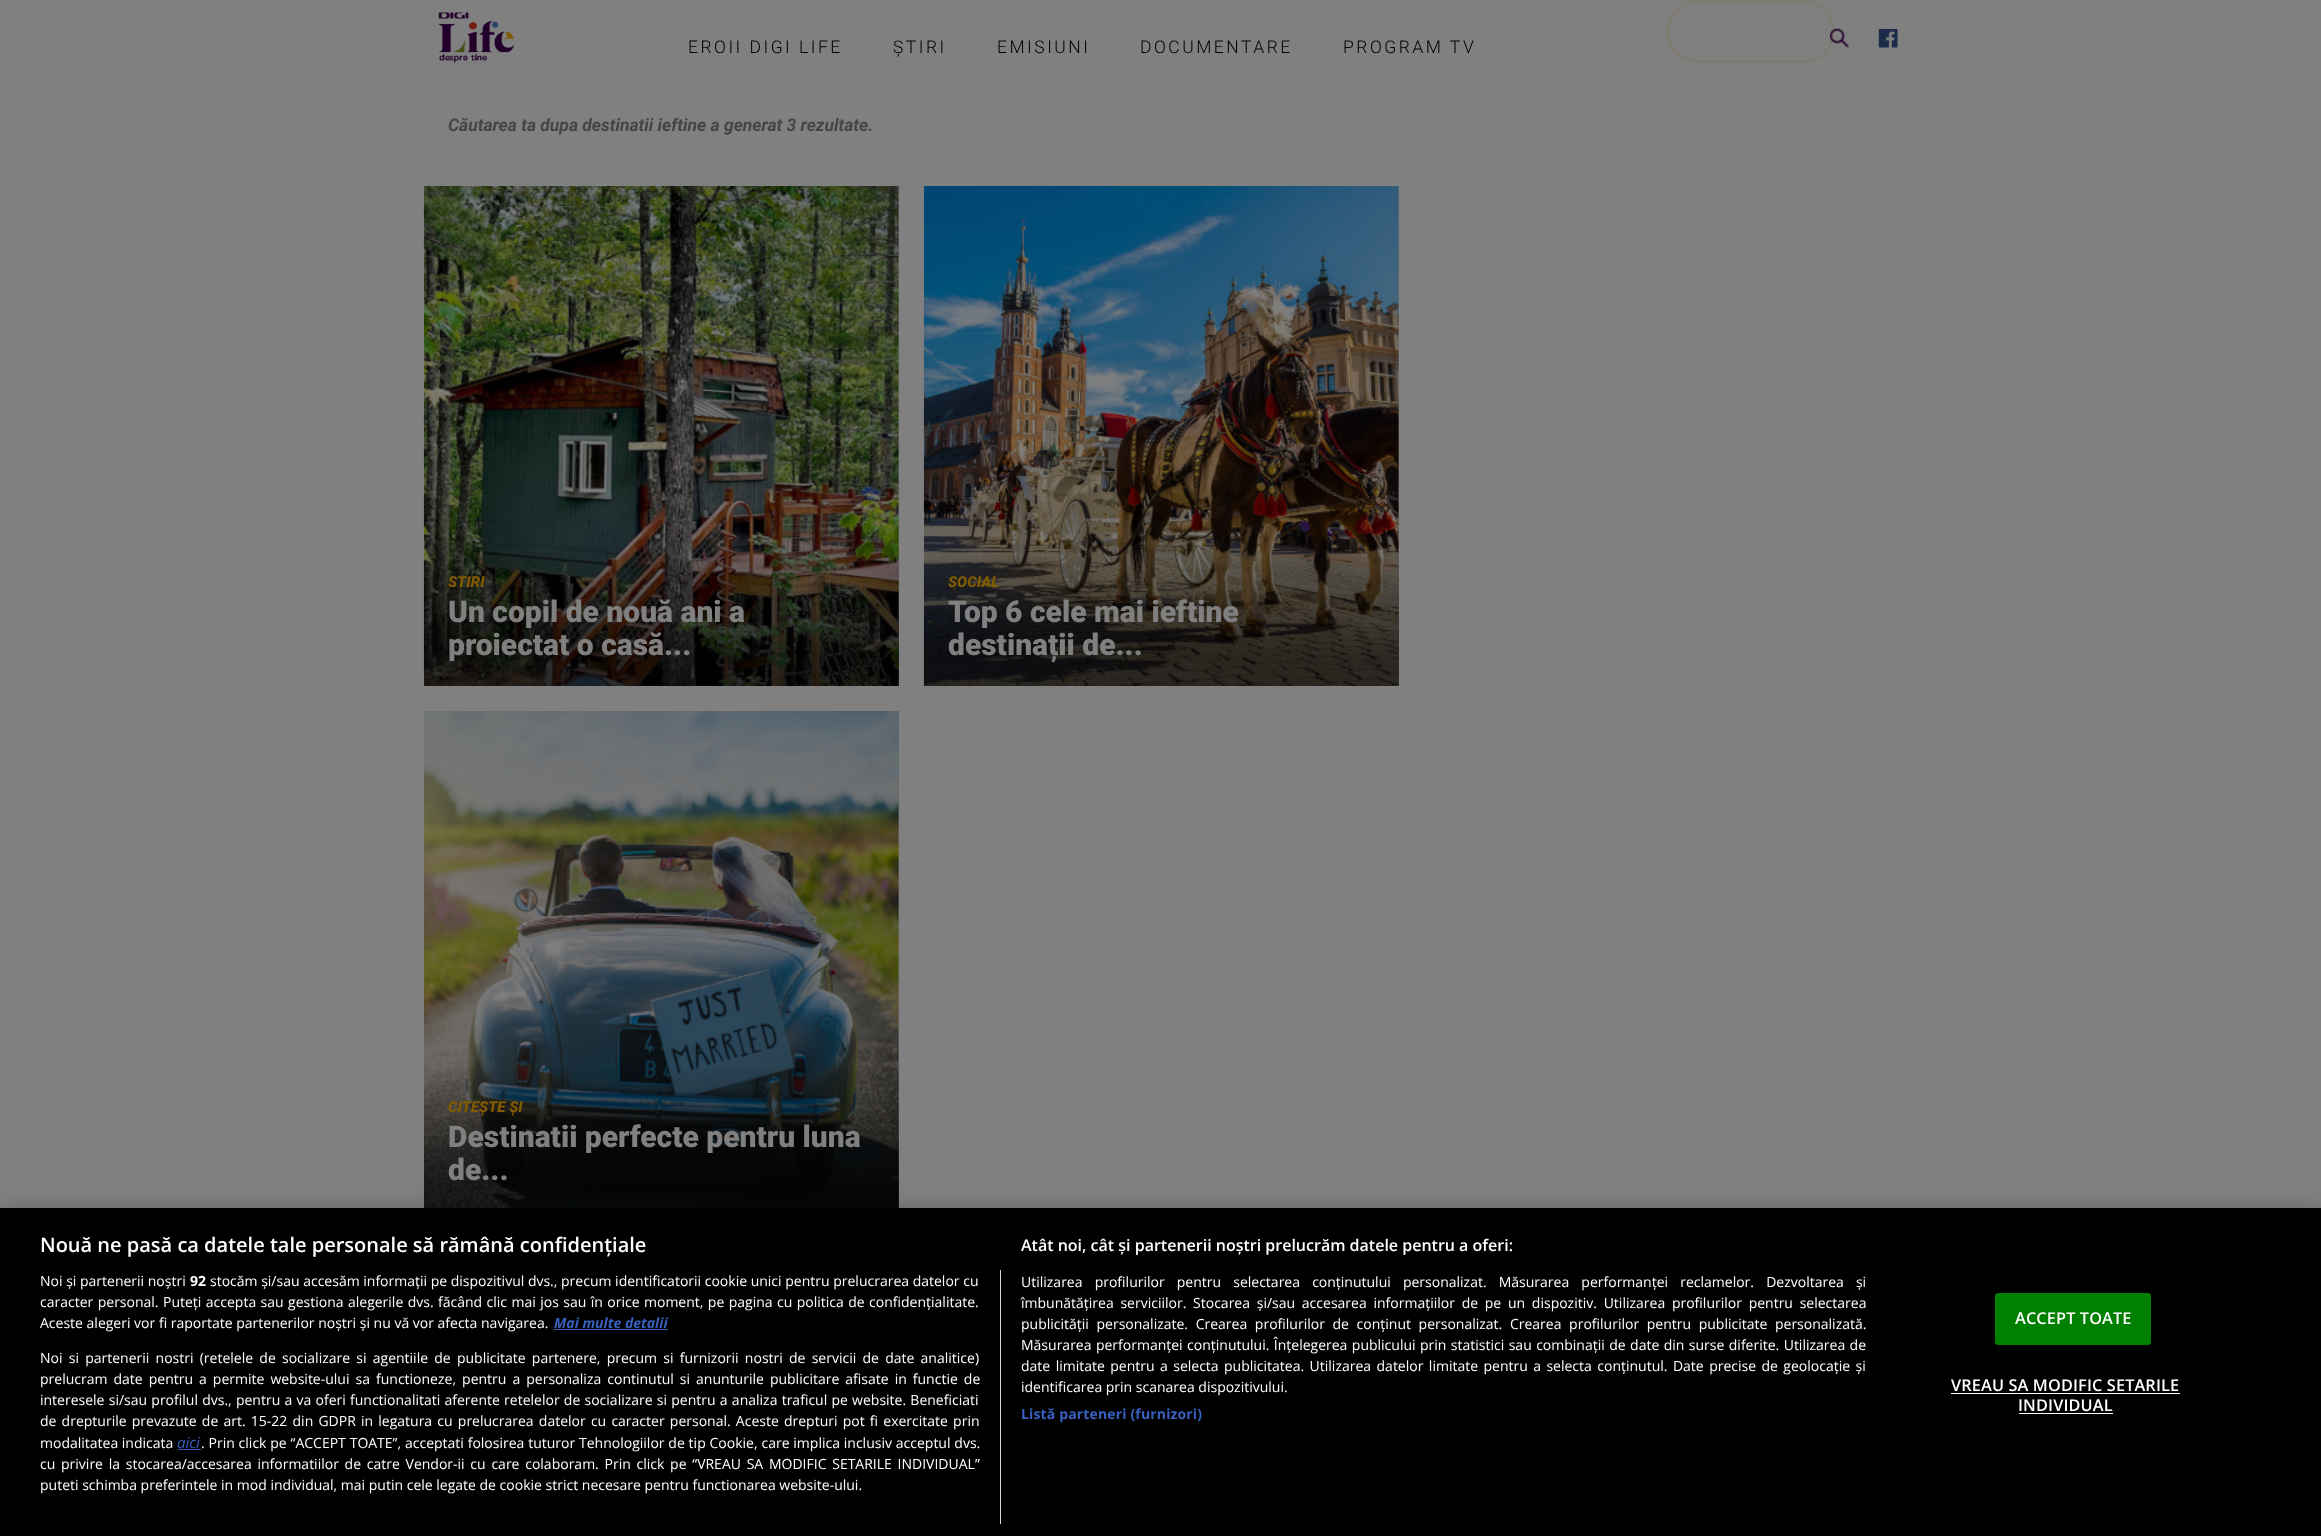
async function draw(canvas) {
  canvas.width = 2321
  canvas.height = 1536
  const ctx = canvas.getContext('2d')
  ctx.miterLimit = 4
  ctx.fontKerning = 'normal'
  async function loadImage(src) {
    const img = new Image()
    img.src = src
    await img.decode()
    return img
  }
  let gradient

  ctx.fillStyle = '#808080'
  ctx.fillRect(0, 0, 2321, 1536)
  ctx.fillStyle = '#1c294a26'
  ctx.filter = 'blur(3px)'
  ctx.beginPath()
  ctx.roundRect(424, 4, 1167, 62, 31)
  ctx.fill()
  ctx.filter = 'none'
  ctx.fillStyle = '#808080'
  ctx.beginPath()
  ctx.roundRect(424.5, 0.5, 1166, 62, 31)
  ctx.fill()
  ctx.strokeStyle = '#696b6d'
  ctx.stroke()
  ctx.beginPath()
  ctx.roundRect(1667.5, 1.5, 166, 60, 30)
  ctx.strokeStyle = '#805a00'
  ctx.lineWidth = 3
  ctx.stroke()
  ctx.fillStyle = '#808080e6'
  ctx.fillRect(422, 0, 1413, 65)
  ctx.drawImage(await loadImage('image0.png'), 438, 12, 77, 51)
  ctx.letterSpacing = '2.5px'
  ctx.font = '300 17.5px Roboto'
  ctx.fillStyle = '#000'
  ctx.fillText('EROII DIGI LIFE', 688, 53)
  ctx.fillText('ȘTIRI', 893, 53)
  ctx.fillText('EMISIUNI', 997, 53)
  ctx.fillText('DOCUMENTARE', 1140, 53)
  ctx.fillText('PROGRAM TV', 1343, 53)
  ctx.drawImage(await loadImage('image1.png'), 1829, 28, 20, 20)
  ctx.drawImage(await loadImage('image2.png'), 1878, 28, 20, 20)
  ctx.letterSpacing = '0px'
  ctx.font = 'italic bold 17.5px Roboto'
  ctx.fillStyle = '#404040'
  ctx.fillText('Căutarea ta dupa destinatii ieftine a generat 3 rezultate.', 448, 131)
  gradient = ctx.createLinearGradient(1161, 65, 1161, 146)
  gradient.addColorStop(0, '#808080e6')
  gradient.addColorStop(0.65, '#8080801a')
  gradient.addColorStop(1, '#80808000')
  ctx.fillStyle = gradient
  ctx.fillRect(442, 65, 1131, 69)
  ctx.fillStyle = '#696b6d'
  ctx.fillRect(898, 186, 1, 500)
  ctx.drawImage(await loadImage('image3.png'), 423, 186, 476, 500)
  gradient = ctx.createLinearGradient(661, 686, 661, 538)
  gradient.addColorStop(0.2, '#00000099')
  gradient.addColorStop(1, '#00000000')
  ctx.fillStyle = gradient
  ctx.fillRect(424, 542, 475, 144)
  ctx.font = 'italic 900 15px Roboto'
  ctx.fillStyle = '#805a00'
  ctx.fillText('STIRI', 448, 587)
  ctx.font = '900 30px Roboto'
  ctx.fillStyle = '#808080'
  ctx.fillText('Un copil de nouă ani a', 448, 622)
  ctx.fillText('proiectat o casă...', 448, 655)
  ctx.fillStyle = '#696b6d'
  ctx.fillRect(1398, 186, 1, 500)
  ctx.drawImage(await loadImage('image4.png'), 923, 186, 476, 500)
  gradient = ctx.createLinearGradient(1161, 686, 1161, 538)
  gradient.addColorStop(0.2, '#00000099')
  gradient.addColorStop(1, '#00000000')
  ctx.fillStyle = gradient
  ctx.fillRect(924, 542, 475, 144)
  ctx.font = 'italic 900 15px Roboto'
  ctx.fillStyle = '#805a00'
  ctx.fillText('SOCIAL', 948, 587)
  ctx.font = '900 30px Roboto'
  ctx.fillStyle = '#808080'
  ctx.fillText('Top 6 cele mai ieftine', 948, 622)
  ctx.fillText('destinații de...', 948, 655)
  ctx.fillStyle = '#696b6d'
  ctx.fillRect(898, 711, 1, 497)
  ctx.drawImage(await loadImage('image5.png'), 423, 711, 476, 497)
  gradient = ctx.createLinearGradient(661, 1211, 661, 1063)
  gradient.addColorStop(0.2, '#00000099')
  gradient.addColorStop(1, '#00000000')
  ctx.fillStyle = gradient
  ctx.fillRect(424, 1068, 475, 140)
  ctx.font = 'italic 900 15px Roboto'
  ctx.fillStyle = '#805a00'
  ctx.fillText('CITEȘTE ȘI', 448, 1112)
  ctx.font = '900 30px Roboto'
  ctx.fillStyle = '#808080'
  ctx.fillText('Destinatii perfecte pentru luna', 448, 1147)
  ctx.fillText('de...', 448, 1180)
  ctx.fillStyle = '#00000033'
  ctx.filter = 'blur(11px)'
  ctx.beginPath()
  ctx.rect(0, 1208, 2321, 328)
  ctx.fill()
  ctx.filter = 'none'
  ctx.fillStyle = '#000'
  ctx.fillRect(0, 1208, 2321, 328)
  ctx.font = '600 20px Open Sans'
  ctx.fillStyle = '#fff'
  ctx.fillText('Nouă ne pasă ca datele tale personale să rămână confidențiale', 40, 1252)
  ctx.font = '600 16px Open Sans'
  ctx.fillText('Atât noi, cât și partenerii noștri prelucrăm datele pentru a oferi:', 1021, 1251)
  ctx.wordSpacing = '8.5px'
  ctx.font = '14px Open Sans'
  ctx.fillText('Utilizarea profilurilor pentru selectarea conținutului personalizat. Măsurarea performanței reclamelor. Dezvoltarea și', 1021, 1287)
  ctx.wordSpacing = '3.1px'
  ctx.fillText('îmbunătățirea serviciilor. Stocarea și/sau accesarea informațiilor de pe un dispozitiv. Utilizarea profilurilor pentru selectarea', 1021, 1308)
  ctx.wordSpacing = '4px'
  ctx.fillText('publicității personalizate. Crearea profilurilor de conținut personalizat. Crearea profilurilor pentru publicitate personalizată.', 1021, 1329)
  ctx.wordSpacing = '0.8px'
  ctx.fillText('Măsurarea performanței conținutului. Înțelegerea publicului prin statistici sau combinații de date din surse diferite. Utilizarea de', 1021, 1350)
  ctx.wordSpacing = '1.8px'
  ctx.fillText('date limitate pentru a selecta publicitatea. Utilizarea datelor limitate pentru a selecta conținutul. Date precise de geolocație și', 1021, 1371)
  ctx.wordSpacing = '0px'
  ctx.fillText('identificarea prin scanarea dispozitivului.', 1021, 1392)
  ctx.letterSpacing = '0.15px'
  ctx.font = 'bold 14px Open Sans'
  ctx.fillStyle = '#3860be'
  ctx.fillText('Listă parteneri (furnizori)', 1021, 1419)
  ctx.fillStyle = '#d8d8d8'
  ctx.fillRect(1000, 1270, 1, 254)
  ctx.letterSpacing = '0px'
  ctx.font = '14px Open Sans'
  ctx.fillStyle = '#fff'
  ctx.fillText('Noi și partenerii noștri', 40, 1286)
  ctx.font = 'bold 14px Open Sans'
  ctx.fillText('92', 190, 1286)
  ctx.font = '14px Open Sans'
  ctx.fillText('stocăm și/sau accesăm informații pe dispozitivul dvs., precum identificatorii cookie unici pentru prelucrarea datelor cu', 210, 1286)
  ctx.wordSpacing = '0.8px'
  ctx.fillText('caracter personal. Puteți accepta sau gestiona alegerile dvs. făcând clic mai jos sau în orice moment, pe pagina cu politica de confidențialitate.', 40, 1307)
  ctx.wordSpacing = '0px'
  ctx.fillText('Aceste alegeri vor fi raportate partenerilor noștri și nu vă vor afecta navigarea.', 40, 1328)
  ctx.font = 'italic bold 14px Open Sans'
  ctx.fillStyle = '#3860be'
  ctx.fillText('Mai multe detalii', 554, 1328)
  ctx.fillRect(554, 1329, 114, 1)
  ctx.wordSpacing = '2.6px'
  ctx.font = '14px Open Sans'
  ctx.fillStyle = '#fff'
  ctx.fillText('Noi si partenerii nostri (retelele de socializare si agentiile de publicitate partenere, precum si furnizorii nostri de servicii de date analitice)', 40, 1363)
  ctx.wordSpacing = '2.4px'
  ctx.fillText('prelucram date pentru a permite website-ului sa functioneze, pentru a personaliza continutul si anunturile publicitare afisate in functie de', 40, 1384)
  ctx.wordSpacing = '0.6px'
  ctx.fillText('interesele si/sau profilul dvs., pentru a va oferi functionalitati aferente retelelor de socializare si pentru a analiza traficul pe website. Beneficiati', 40, 1405)
  ctx.wordSpacing = '1.55px'
  ctx.fillText('de drepturile prevazute de art. 15-22 din GDPR in legatura cu prelucrarea datelor cu caracter personal. Aceste drepturi pot fi exercitate prin', 40, 1426)
  ctx.wordSpacing = '0px'
  ctx.fillText('modalitatea indicata', 40, 1448)
  ctx.font = 'italic 15px Open Sans'
  ctx.fillStyle = '#3860be'
  ctx.fillText('aici', 177, 1448)
  ctx.fillRect(178, 1449, 23, 1)
  ctx.wordSpacing = '0.2px'
  ctx.font = '14px Open Sans'
  ctx.fillStyle = '#fff'
  ctx.fillText('. Prin click pe “ACCEPT TOATE”, acceptati folosirea tuturor Tehnologiilor de tip Cookie, care implica inclusiv acceptul dvs.', 201, 1448)
  ctx.wordSpacing = '2.1px'
  ctx.fillText('cu privire la stocarea/accesarea informatiilor de catre Vendor-ii cu care colaboram. Prin click pe “VREAU SA MODIFIC SETARILE INDIVIDUAL”', 40, 1469)
  ctx.wordSpacing = '0px'
  ctx.fillText('puteti schimba preferintele in mod individual, mai putin cele legate de cookie strict necesare pentru functionarea website-ului.', 40, 1490)
  ctx.fillStyle = '#008000'
  ctx.beginPath()
  ctx.roundRect(1995.5, 1293.5, 155, 51, 2)
  ctx.fill()
  ctx.strokeStyle = '#008000'
  ctx.lineWidth = 1
  ctx.stroke()
  ctx.letterSpacing = '0.15px'
  ctx.font = '600 16.25px Open Sans'
  ctx.fillStyle = '#fff'
  ctx.fillText('ACCEPT TOATE', 2015, 1324)
  ctx.fillText('VREAU SA MODIFIC SETARILE', 1951, 1391)
  ctx.fillRect(1951, 1393, 229, 1)
  ctx.fillText('INDIVIDUAL', 2018, 1411)
  ctx.fillRect(2019, 1413, 94, 1)
}

draw(document.querySelector('canvas'))
